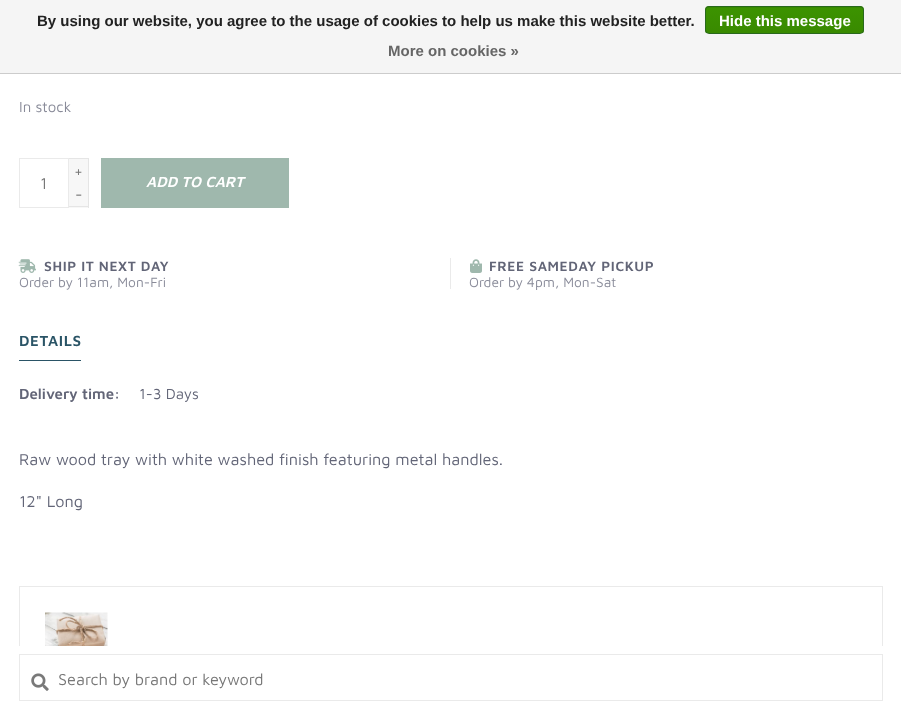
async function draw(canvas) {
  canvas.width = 901
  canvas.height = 714
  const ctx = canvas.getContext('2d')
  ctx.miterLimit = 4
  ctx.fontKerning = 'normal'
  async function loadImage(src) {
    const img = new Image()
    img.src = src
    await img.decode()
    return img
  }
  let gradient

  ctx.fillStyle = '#fff'
  ctx.fillRect(0, 0, 901, 714)
  ctx.fillStyle = '#f5f5f5'
  ctx.fillRect(0, 0, 901, 73)
  ctx.fillStyle = '#ccc'
  ctx.fillRect(0, 73, 901, 1)
  ctx.font = 'bold 15px Liberation Sans'
  ctx.fillStyle = '#222'
  ctx.fillText('By using our website, you agree to the usage of cookies to help us make this website better.', 37, 26)
  ctx.save()
  ctx.beginPath()
  ctx.roundRect(705, 6, 159, 28, 4)
  ctx.clip()
  gradient = ctx.createLinearGradient(784, -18, 784, 7.5)
  gradient.addColorStop(0, '#3c9300')
  gradient.addColorStop(1, '#398a00')
  ctx.fillStyle = gradient
  ctx.fillRect(705, 6, 159, 2)
  gradient = ctx.createLinearGradient(784, 7.5, 784, 33)
  gradient.addColorStop(0, '#3c9300')
  gradient.addColorStop(1, '#398a00')
  ctx.fillStyle = gradient
  ctx.fillRect(705, 8, 159, 25)
  ctx.restore()
  ctx.beginPath()
  ctx.roundRect(705.5, 6.5, 158, 27, 3.5)
  ctx.strokeStyle = '#29691d'
  ctx.stroke()
  ctx.fillStyle = '#fff'
  ctx.fillText('Hide this message', 719, 26)
  ctx.fillStyle = '#666'
  ctx.fillText('More on cookies »', 388, 56)
  ctx.font = '15px Maven Pro'
  ctx.fillStyle = '#898b99'
  ctx.fillText('In stock', 19, 112)
  ctx.strokeStyle = '#eaeaea'
  ctx.strokeRect(19.5, 158.5, 49, 49)
  ctx.font = '16.25px Maven Pro'
  ctx.fillStyle = '#777'
  ctx.fillText('1', 40, 189)
  ctx.fillStyle = '#f7f7f7'
  ctx.fillRect(69, 159, 19, 49)
  ctx.fillStyle = '#e5e5e5'
  ctx.fillRect(69, 158, 20, 1)
  ctx.fillRect(88, 158, 1, 50)
  ctx.fillRect(69, 206, 20, 1)
  ctx.fillStyle = '#777'
  ctx.fillText('+', 74, 177)
  ctx.fillText('-', 75, 200)
  ctx.fillStyle = '#9fb8ad'
  ctx.fillRect(101, 158, 188, 50)
  ctx.font = 'italic 600 15px Maven Pro'
  ctx.fillStyle = '#fff'
  ctx.fillText('ADD TO CART', 146, 187)
  ctx.fillStyle = '#eaeaea'
  ctx.fillRect(450, 258, 1, 31)
  ctx.drawImage(await loadImage('image0.png'), 18, 259, 18, 14)
  ctx.letterSpacing = '0.6px'
  ctx.font = '600 13.75px Maven Pro'
  ctx.fillStyle = '#626577'
  ctx.fillText('SHIP IT NEXT DAY', 44, 271)
  ctx.letterSpacing = '0px'
  ctx.font = '13.75px Maven Pro'
  ctx.fillStyle = '#898b99'
  ctx.fillText('Order by 11am, Mon-Fri', 19, 287)
  ctx.drawImage(await loadImage('image1.png'), 470, 259, 12, 14)
  ctx.letterSpacing = '0.6px'
  ctx.font = '600 13.75px Maven Pro'
  ctx.fillStyle = '#626577'
  ctx.fillText('FREE SAMEDAY PICKUP', 489, 271)
  ctx.letterSpacing = '0px'
  ctx.font = '13.75px Maven Pro'
  ctx.fillStyle = '#898b99'
  ctx.fillText('Order by 4pm, Mon-Sat', 469, 287)
  ctx.fillStyle = '#2a5466'
  ctx.fillRect(19, 360, 62, 1)
  ctx.letterSpacing = '0.6px'
  ctx.font = '600 15px Maven Pro'
  ctx.fillText('DETAILS', 19, 346)
  ctx.letterSpacing = '0px'
  ctx.fillStyle = '#626577'
  ctx.fillText('Delivery time:', 19, 399)
  ctx.font = '15px Maven Pro'
  ctx.fillText('1-3 Days', 139, 399)
  ctx.font = '16.25px Maven Pro'
  ctx.fillText('Raw wood tray with white washed finish featuring metal handles.', 19, 465)
  ctx.fillText('12" Long', 19, 507)
  ctx.strokeRect(19.5, 586.5, 863, 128)
  ctx.drawImage(await loadImage('image2.png'), 45, 612, 63, 34)
  ctx.fillStyle = '#fff'
  ctx.fillRect(19, 646, 864, 68)
  ctx.strokeRect(19.5, 654.5, 863, 46)
  ctx.drawImage(await loadImage('image3.png'), 31, 673, 18, 18)
  ctx.fillStyle = '#777'
  ctx.fillText('Search by brand or keyword', 58, 685)
}

draw(document.querySelector('canvas'))
